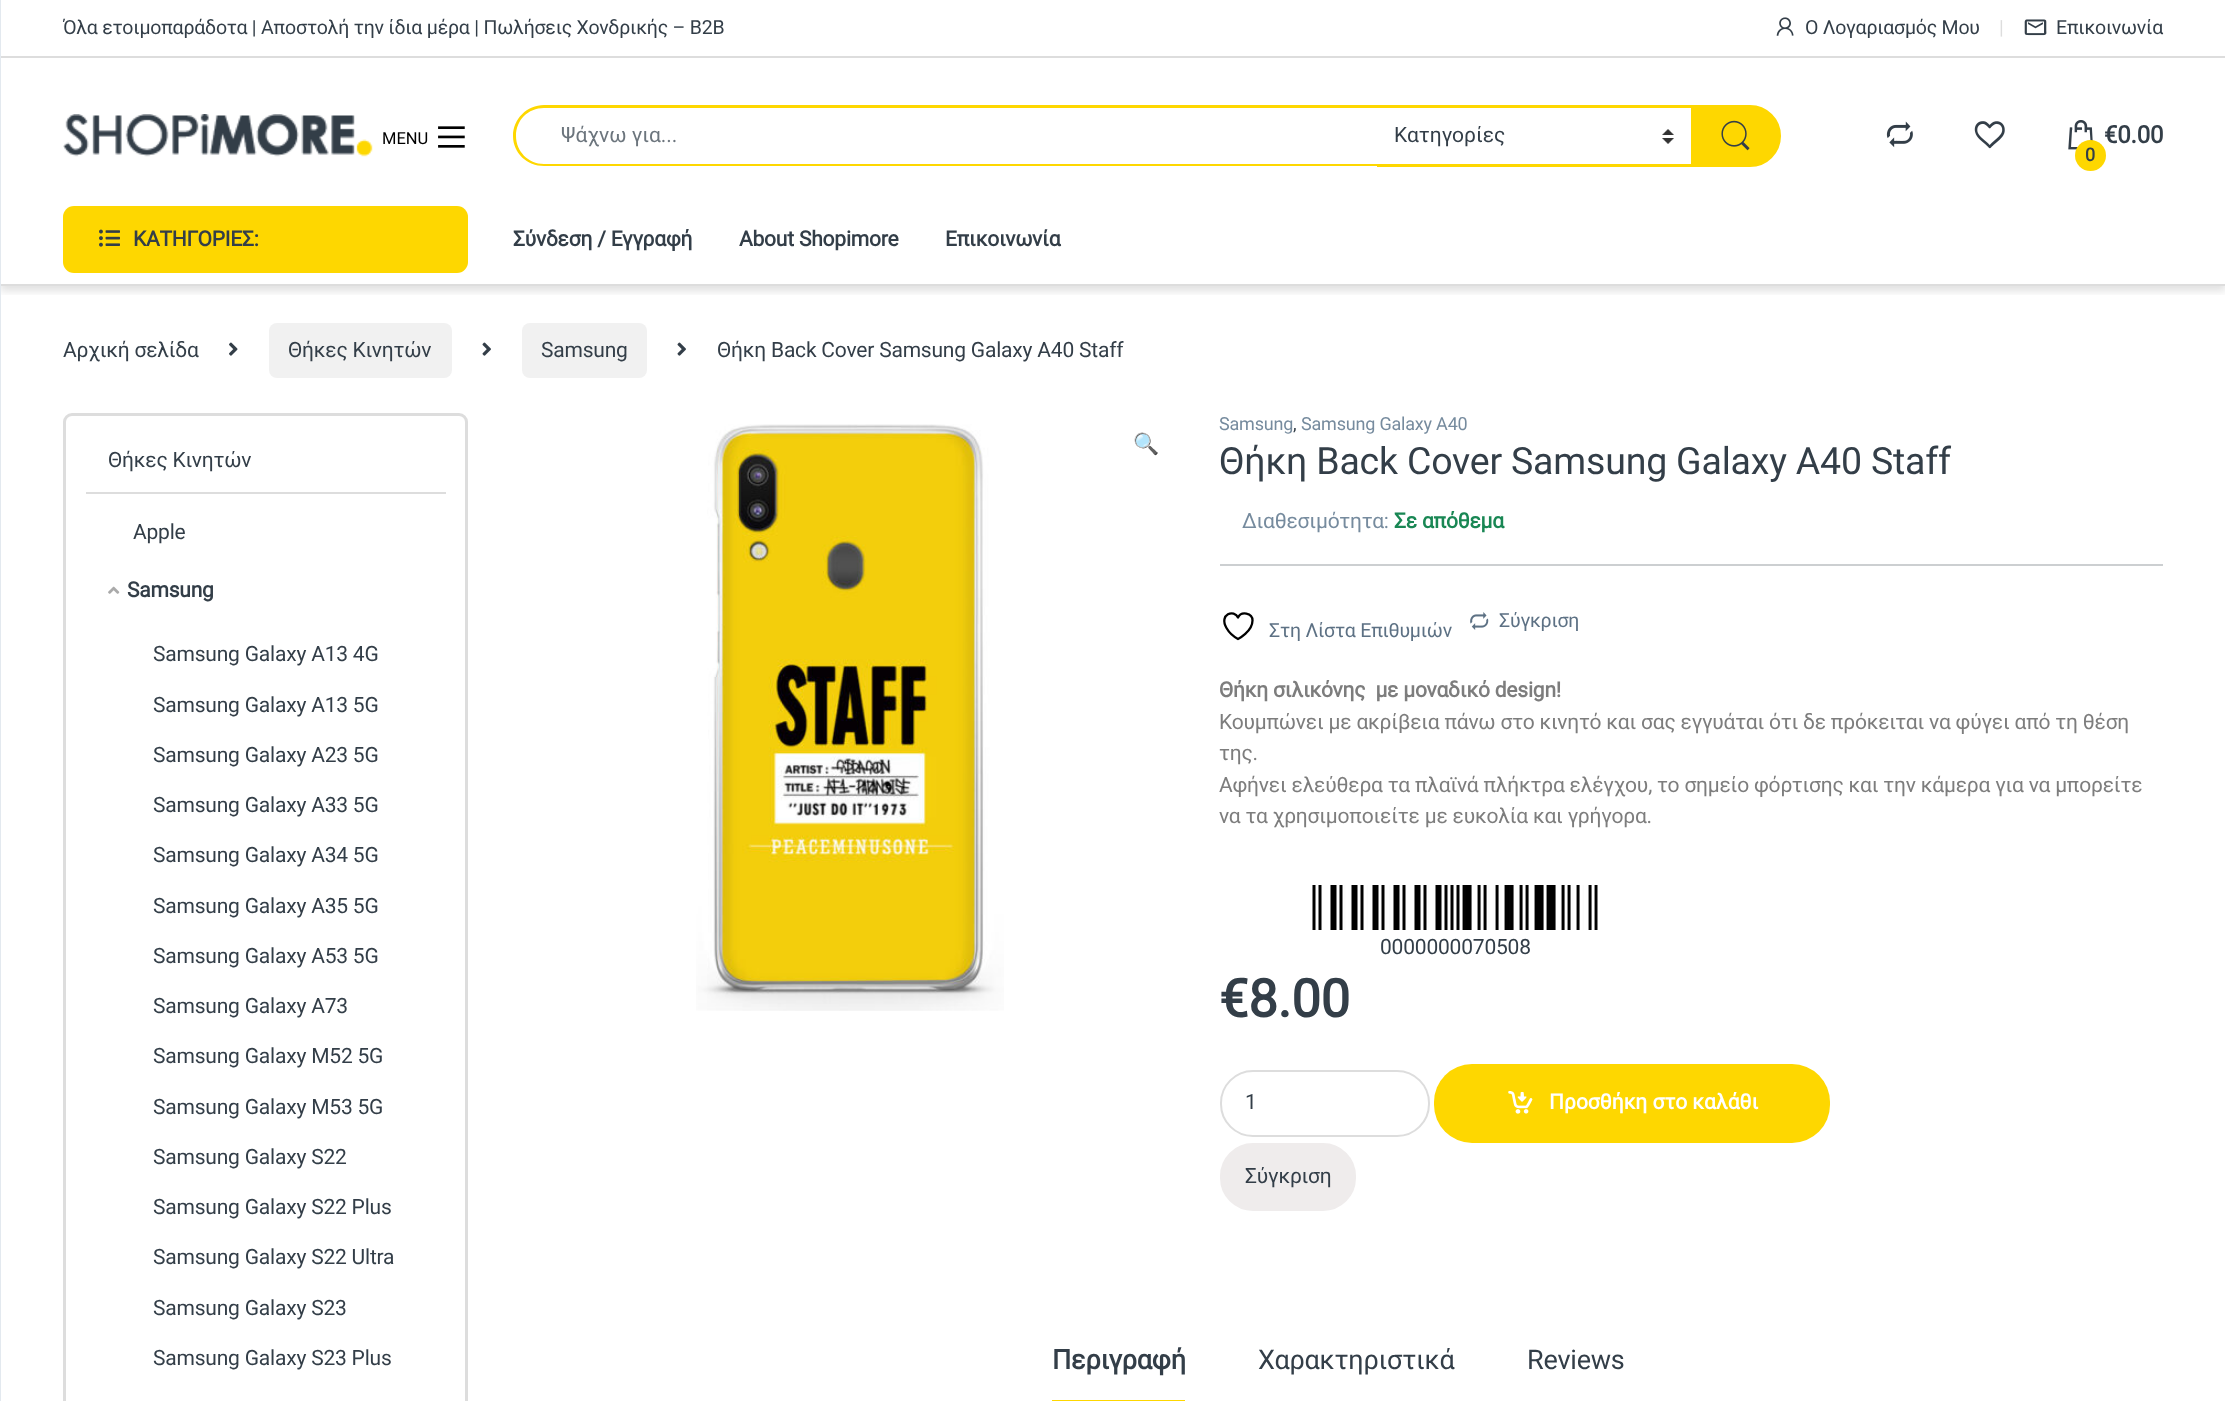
async function draw(canvas) {
  canvas.width = 2225
  canvas.height = 1401
  const ctx = canvas.getContext('2d')
  ctx.miterLimit = 4
  ctx.fontKerning = 'normal'
  async function loadImage(src) {
    const img = new Image()
    img.src = src
    await img.decode()
    return img
  }

  ctx.fillStyle = '#fff'
  ctx.fillRect(0, 0, 2225, 1401)
  ctx.fillStyle = '#ddd'
  ctx.fillRect(0, 56, 2225, 2)
  ctx.letterSpacing = '-0.2px'
  ctx.font = '19.5px Roboto'
  ctx.fillStyle = '#333e48'
  ctx.fillText('Όλα ετοιμοπαράδοτα | Αποστολή την ίδια μέρα | Πωλήσεις Χονδρικής – B2B', 63, 34)
  ctx.drawImage(await loadImage('image0.png'), 1776, 17, 18, 19)
  ctx.fillText('Ο Λογαριασμός Μου', 1805, 34)
  ctx.fillStyle = '#ddd'
  ctx.fillText('|', 1999, 34)
  ctx.drawImage(await loadImage('image1.png'), 2024, 19, 23, 17)
  ctx.fillStyle = '#333e48'
  ctx.fillText('Επικοινωνία', 2056, 34)
  ctx.save()
  ctx.beginPath()
  ctx.rect(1, 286, 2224, 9)
  ctx.clip()
  ctx.fillStyle = '#0000001f'
  ctx.filter = 'blur(4.5px)'
  ctx.beginPath()
  ctx.rect(0, 63, 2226, 228)
  ctx.fill()
  ctx.filter = 'none'
  ctx.restore()
  ctx.fillStyle = '#ddd'
  ctx.fillRect(0, 284, 2225, 2)
  ctx.drawImage(await loadImage('image2.png'), 63, 114, 310, 43)
  ctx.fillStyle = '#e3e9ef'
  ctx.fillRect(0, 0, 1, 1401)
  ctx.letterSpacing = '0px'
  ctx.font = '16.5px Roboto'
  ctx.fillStyle = '#000'
  ctx.fillText('MENU', 382, 144)
  ctx.drawImage(await loadImage('image3.png'), 438, 126, 27, 22)
  ctx.fillStyle = '#fed700'
  ctx.fillRect(1377, 105, 315, 3)
  ctx.fillRect(1377, 164, 315, 3)
  ctx.beginPath()
  ctx.moveTo(544, 105)
  ctx.lineTo(1378, 105)
  ctx.lineTo(1378, 166)
  ctx.lineTo(544, 166)
  ctx.bezierCurveTo(527, 166, 513, 153, 513, 136)
  ctx.bezierCurveTo(513, 119, 527, 105, 544, 105)
  ctx.closePath()
  ctx.moveTo(544, 108)
  ctx.lineTo(1378, 108)
  ctx.lineTo(1378, 164)
  ctx.lineTo(544, 164)
  ctx.bezierCurveTo(528, 164, 516, 151, 516, 136)
  ctx.bezierCurveTo(516, 120, 528, 108, 544, 108)
  ctx.closePath()
  ctx.fill('evenodd')
  ctx.font = '21px Roboto'
  ctx.fillStyle = '#6c757d'
  ctx.fillText('Ψάχνω για...', 561, 142)
  ctx.drawImage(await loadImage('image4.png'), 1662, 129, 12, 15)
  ctx.fillStyle = '#333e48'
  ctx.fillText('Κατηγορίες', 1394, 142)
  ctx.fillStyle = '#fed700'
  ctx.beginPath()
  ctx.roundRect(1692.5, 106.5, 87, 59, [0, 29.5, 29.5, 0])
  ctx.fill()
  ctx.strokeStyle = '#fed700'
  ctx.lineWidth = 3
  ctx.stroke()
  ctx.drawImage(await loadImage('image5.png'), 1721, 120, 29, 31)
  ctx.drawImage(await loadImage('image6.png'), 1886, 121, 27, 27)
  ctx.drawImage(await loadImage('image7.png'), 1974, 121, 31, 28)
  ctx.drawImage(await loadImage('image8.png'), 2068, 120, 25, 30)
  ctx.letterSpacing = '-0.2px'
  ctx.font = 'bold 24px Roboto'
  ctx.fillStyle = '#333e48'
  ctx.fillText('€0.00', 2104, 143)
  ctx.fillStyle = '#fed700'
  ctx.beginPath()
  ctx.arc(2090.5, 155.5, 15.5, 0, 2 * Math.PI)
  ctx.fill()
  ctx.font = 'bold 18px Roboto'
  ctx.fillStyle = '#333e48'
  ctx.fillText('0', 2085, 161)
  ctx.fillStyle = '#fed700'
  ctx.beginPath()
  ctx.roundRect(63, 206, 405, 67, 11)
  ctx.fill()
  ctx.drawImage(await loadImage('image9.png'), 99, 229, 21, 18)
  ctx.font = 'bold 21px Roboto'
  ctx.fillStyle = '#333e48'
  ctx.fillText('ΚΑΤΗΓΟΡΙΕΣ:', 133, 246)
  ctx.fillText('Σύνδεση / Εγγραφή', 513, 246)
  ctx.fillText('About Shopimore', 739, 246)
  ctx.fillText('Επικοινωνία', 945, 246)
  ctx.font = '21px Roboto'
  ctx.fillText('Αρχική σελίδα', 63, 357)
  ctx.drawImage(await loadImage('image10.png'), 229, 342, 9, 14)
  ctx.fillStyle = '#f1f1f1'
  ctx.beginPath()
  ctx.roundRect(269, 323, 183, 55, 8)
  ctx.fill()
  ctx.fillStyle = '#333e48'
  ctx.fillText('Θήκες Κινητών', 288, 357)
  ctx.drawImage(await loadImage('image11.png'), 482, 342, 9, 14)
  ctx.fillStyle = '#f1f1f1'
  ctx.beginPath()
  ctx.roundRect(522, 323, 125, 55, 8)
  ctx.fill()
  ctx.fillStyle = '#333e48'
  ctx.fillText('Samsung', 541, 357)
  ctx.drawImage(await loadImage('image11.png'), 677, 342, 9, 14)
  ctx.fillText('Θήκη Back Cover Samsung Galaxy A40 Staff', 717, 357)
  ctx.beginPath()
  ctx.roundRect(64.5, 414.5, 402, 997, 7.5)
  ctx.strokeStyle = '#ddd'
  ctx.stroke()
  ctx.fillText('Θήκες Κινητών', 108, 467)
  ctx.fillStyle = '#ddd'
  ctx.fillRect(86, 492, 360, 2)
  ctx.fillStyle = '#333e48'
  ctx.fillText('Apple', 133, 539)
  ctx.drawImage(await loadImage('image12.png'), 108, 586, 12, 8)
  ctx.font = 'bold 21px Roboto'
  ctx.fillText('Samsung', 127, 597)
  ctx.font = '21px Roboto'
  ctx.fillText('Samsung Galaxy A13 4G', 153, 661)
  ctx.fillText('Samsung Galaxy A13 5G', 153, 712)
  ctx.fillText('Samsung Galaxy A23 5G', 153, 762)
  ctx.fillText('Samsung Galaxy A33 5G', 153, 812)
  ctx.fillText('Samsung Galaxy A34 5G', 153, 862)
  ctx.fillText('Samsung Galaxy A35 5G', 153, 913)
  ctx.fillText('Samsung Galaxy A53 5G', 153, 963)
  ctx.fillText('Samsung Galaxy A73', 153, 1013)
  ctx.fillText('Samsung Galaxy M52 5G', 153, 1063)
  ctx.fillText('Samsung Galaxy M53 5G', 153, 1114)
  ctx.fillText('Samsung Galaxy S22', 153, 1164)
  ctx.fillText('Samsung Galaxy S22 Plus', 153, 1214)
  ctx.fillText('Samsung Galaxy S22 Ultra', 153, 1264)
  ctx.fillText('Samsung Galaxy S23', 153, 1315)
  ctx.fillText('Samsung Galaxy S23 Plus', 153, 1365)
  ctx.drawImage(await loadImage('image13.png'), 696, 424, 308, 587)
  ctx.font = '21px Noto Color Emoji'
  ctx.fillText('🔍', 1133, 451)
  ctx.font = '18px Roboto'
  ctx.fillStyle = '#768b9e'
  ctx.fillText('Samsung', 1219, 430)
  ctx.fillStyle = '#333e48'
  ctx.fillText(',', 1293, 430)
  ctx.fillStyle = '#768b9e'
  ctx.fillText('Samsung Galaxy A40', 1301, 430)
  ctx.font = '37.5px Roboto'
  ctx.fillStyle = '#333e48'
  ctx.fillText('Θήκη Back Cover Samsung Galaxy A40 Staff', 1219, 474)
  ctx.font = '21px Roboto'
  ctx.fillStyle = '#768b9e'
  ctx.fillText('Διαθεσιμότητα:', 1242, 528)
  ctx.font = 'bold 21px Roboto'
  ctx.fillStyle = '#198754'
  ctx.fillText('Σε απόθεμα', 1394, 528)
  ctx.fillStyle = '#cccfd1'
  ctx.fillRect(1220, 564, 943, 2)
  ctx.beginPath()
  ctx.moveTo(1252.5, 620.5)
  ctx.bezierCurveTo(1252.5, 612.5, 1241, 611, 1238, 617.5)
  ctx.bezierCurveTo(1234.5, 609, 1218.5, 614, 1226.5, 628)
  ctx.bezierCurveTo(1229, 632.5, 1233.5, 636.5, 1238, 639)
  ctx.bezierCurveTo(1238, 639, 1252.5, 631.5, 1252.5, 620.5)
  ctx.closePath()
  ctx.strokeStyle = '#000'
  ctx.lineWidth = 2.3
  ctx.lineCap = 'round'
  ctx.lineJoin = 'round'
  ctx.stroke()
  ctx.font = '19.5px Roboto'
  ctx.fillStyle = '#5d7184'
  ctx.fillText('Στη Λίστα Επιθυμιών', 1269, 637)
  ctx.drawImage(await loadImage('image14.png'), 1470, 612, 19, 18)
  ctx.fillText('Σύγκριση', 1499, 627)
  ctx.font = 'bold 21px Roboto'
  ctx.fillStyle = '#7d7d7d'
  ctx.fillText('Θήκη σιλικόνης  με μοναδικό design!', 1219, 697)
  ctx.font = '21px Roboto'
  ctx.fillText('Κουμπώνει με ακρίβεια πάνω στο κινητό και σας εγγυάται ότι δε πρόκειται να φύγει από τη θέση', 1219, 729)
  ctx.fillText('της.', 1219, 760)
  ctx.fillText('Αφήνει ελεύθερα τα πλαϊνά πλήκτρα ελέγχου, το σημείο φόρτισης και την κάμερα για να μπορείτε', 1219, 792)
  ctx.fillText('να τα χρησιμοποιείτε με ευκολία και γρήγορα.', 1219, 823)
  ctx.drawImage(await loadImage('image15.png'), 1312, 885, 286, 45)
  ctx.fillStyle = '#333e48'
  ctx.fillText('0000000070508', 1380, 954)
  ctx.font = 'bold 52.5px Roboto'
  ctx.fillText('€8.00', 1219, 1017)
  ctx.beginPath()
  ctx.roundRect(1221, 1071, 208, 65, 32)
  ctx.strokeStyle = '#ddd'
  ctx.lineWidth = 2
  ctx.lineJoin = 'miter'
  ctx.stroke()
  ctx.letterSpacing = '0px'
  ctx.font = '21px Roboto'
  ctx.fillText('1', 1245, 1109)
  ctx.fillStyle = '#fed700'
  ctx.beginPath()
  ctx.roundRect(1434, 1064, 396, 79, 38)
  ctx.fill()
  ctx.drawImage(await loadImage('image16.png'), 1508, 1090, 25, 24)
  ctx.font = 'bold 21px Roboto'
  ctx.fillStyle = '#fff'
  ctx.fillText('Προσθήκη στο καλάθι', 1549, 1109)
  ctx.fillStyle = '#efecec'
  ctx.beginPath()
  ctx.roundRect(1221, 1144, 134, 66, 32)
  ctx.fill()
  ctx.strokeStyle = '#efecec'
  ctx.stroke()
  ctx.letterSpacing = '-0.2px'
  ctx.font = '21px Roboto'
  ctx.fillStyle = '#333e48'
  ctx.fillText('Σύγκριση', 1245, 1183)
  ctx.font = 'bold 27px Roboto'
  ctx.fillText('Περιγραφή', 1052, 1369)
  ctx.fillStyle = '#fed700'
  ctx.fillRect(1052, 1400, 133, 1)
  ctx.font = '27px Roboto'
  ctx.fillStyle = '#333e48'
  ctx.fillText('Χαρακτηριστικά', 1258, 1369)
  ctx.fillText('Reviews', 1527, 1369)
}

draw(document.querySelector('canvas'))
